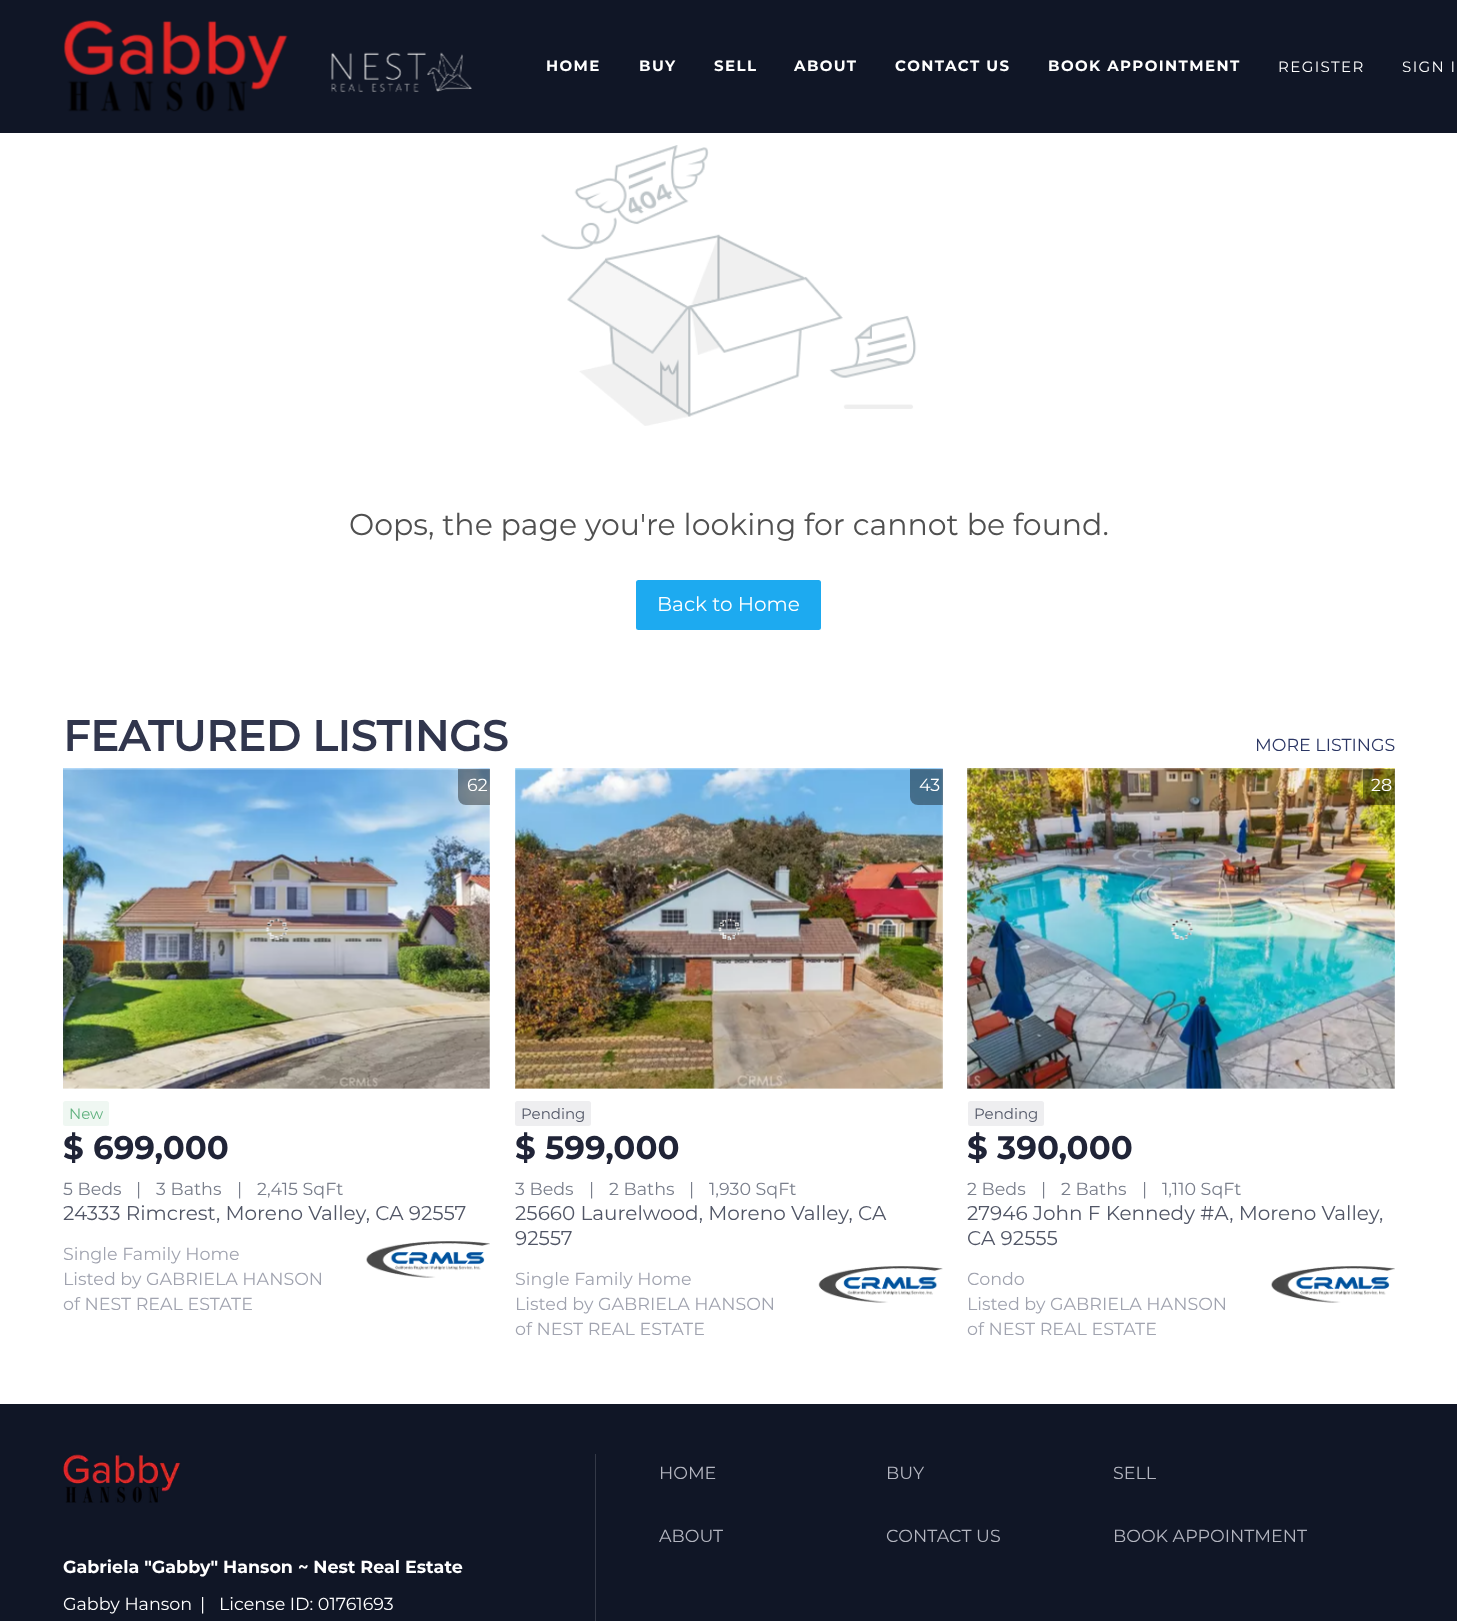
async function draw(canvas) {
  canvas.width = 1457
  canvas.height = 1621
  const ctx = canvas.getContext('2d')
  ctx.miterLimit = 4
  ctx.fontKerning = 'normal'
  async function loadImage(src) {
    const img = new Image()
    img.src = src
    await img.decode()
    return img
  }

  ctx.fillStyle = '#fff'
  ctx.fillRect(0, 0, 1457, 1621)
  ctx.fillStyle = '#101626'
  ctx.fillRect(0, 0, 1457, 133)
  ctx.drawImage(await loadImage('image0.png'), 63, 20, 225, 92)
  ctx.drawImage(await loadImage('image1.png'), 331, 52, 141, 40)
  ctx.letterSpacing = '1.4px'
  ctx.font = 'bold 15px "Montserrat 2"'
  ctx.fillStyle = '#fff'
  ctx.fillText('HOME', 546, 71)
  ctx.fillText('BUY', 639, 71)
  ctx.fillText('SELL', 714, 71)
  ctx.fillText('ABOUT', 794, 71)
  ctx.fillText('CONTACT US', 895, 71)
  ctx.fillText('BOOK APPOINTMENT', 1048, 71)
  ctx.font = '15px Montserrat'
  ctx.fillText('REGISTER', 1278, 72)
  ctx.fillText('SIGN I', 1402, 72)
  ctx.drawImage(await loadImage('image2.png'), 541, 145, 376, 281)
  ctx.letterSpacing = '0px'
  ctx.font = '30px Montserrat'
  ctx.fillStyle = '#505050'
  ctx.fillText('Oops, the page you\'re looking for cannot be found.', 349, 535)
  ctx.fillStyle = '#1daaf0'
  ctx.beginPath()
  ctx.roundRect(636, 580, 185, 50, 2.5)
  ctx.fill()
  ctx.font = '20px Montserrat'
  ctx.fillStyle = '#fff'
  ctx.fillText('Back to Home', 657, 611)
  ctx.font = 'bold 42.5px Montserrat'
  ctx.fillStyle = '#31364d'
  ctx.fillText('FEATURED LISTINGS', 63, 751)
  ctx.font = '17.5px Montserrat'
  ctx.fillStyle = '#2b3664'
  ctx.fillText('MORE LISTINGS', 1255, 751)
  ctx.drawImage(await loadImage('image3.png'), 63, 768, 427, 321)
  ctx.drawImage(await loadImage('image4.png'), 265, 918, 23, 23)
  ctx.fillStyle = '#00000066'
  ctx.beginPath()
  ctx.roundRect(458, 769, 32, 36, [0, 0, 0, 8])
  ctx.fill()
  ctx.fillStyle = '#fff'
  ctx.fillText('62', 467, 791)
  ctx.fillStyle = '#eff7f2'
  ctx.beginPath()
  ctx.roundRect(63, 1101, 46, 25, 2.5)
  ctx.fill()
  ctx.font = '15px Montserrat'
  ctx.fillStyle = '#62b280'
  ctx.fillText('New', 69, 1119)
  ctx.font = 'bold 32.5px "Montserrat 2"'
  ctx.fillStyle = '#202437'
  ctx.fillText('$ 699,000', 63, 1159)
  ctx.font = '17.5px Montserrat'
  ctx.fillStyle = '#797e8b'
  ctx.fillText('5 Beds', 63, 1195)
  ctx.fillText('|', 136, 1195)
  ctx.fillText('3 Baths', 156, 1195)
  ctx.fillText('|', 237, 1195)
  ctx.fillText('2,415 SqFt', 257, 1195)
  ctx.font = '20px Montserrat'
  ctx.fillStyle = '#515666'
  ctx.fillText('24333 Rimcrest, Moreno Valley, CA 92557', 63, 1220)
  ctx.font = '17.5px Montserrat'
  ctx.fillStyle = '#a0a3af'
  ctx.fillText('Single Family Home', 63, 1260)
  ctx.fillText('Listed by GABRIELA HANSON', 63, 1285)
  ctx.fillText('of NEST REAL ESTATE', 63, 1310)
  ctx.drawImage(await loadImage('image5.png'), 366, 1241, 124, 37)
  ctx.drawImage(await loadImage('image6.png'), 515, 768, 428, 321)
  ctx.drawImage(await loadImage('image7.png'), 718, 918, 23, 23)
  ctx.fillStyle = '#00000066'
  ctx.beginPath()
  ctx.roundRect(910, 769, 33, 36, [0, 0, 0, 8])
  ctx.fill()
  ctx.fillStyle = '#fff'
  ctx.fillText('43', 919, 791)
  ctx.fillStyle = '#eeeef0'
  ctx.beginPath()
  ctx.roundRect(515, 1101, 76, 25, 2.5)
  ctx.fill()
  ctx.font = '15px Montserrat'
  ctx.fillStyle = '#515666'
  ctx.fillText('Pending', 521, 1119)
  ctx.font = 'bold 32.5px "Montserrat 2"'
  ctx.fillStyle = '#202437'
  ctx.fillText('$ 599,000', 515, 1159)
  ctx.font = '17.5px Montserrat'
  ctx.fillStyle = '#797e8b'
  ctx.fillText('3 Beds', 515, 1195)
  ctx.fillText('|', 589, 1195)
  ctx.fillText('2 Baths', 609, 1195)
  ctx.fillText('|', 689, 1195)
  ctx.fillText('1,930 SqFt', 709, 1195)
  ctx.font = '20px Montserrat'
  ctx.fillStyle = '#515666'
  ctx.fillText('25660 Laurelwood, Moreno Valley, CA', 515, 1220)
  ctx.fillText('92557', 515, 1245)
  ctx.font = '17.5px Montserrat'
  ctx.fillStyle = '#a0a3af'
  ctx.fillText('Single Family Home', 515, 1285)
  ctx.fillText('Listed by GABRIELA HANSON', 515, 1310)
  ctx.fillText('of NEST REAL ESTATE', 515, 1335)
  ctx.drawImage(await loadImage('image8.png'), 818, 1266, 125, 37)
  ctx.drawImage(await loadImage('image9.png'), 967, 768, 428, 321)
  ctx.drawImage(await loadImage('image10.png'), 1170, 918, 24, 23)
  ctx.fillStyle = '#00000066'
  ctx.beginPath()
  ctx.roundRect(1363, 769, 32, 36, [0, 0, 0, 8])
  ctx.fill()
  ctx.fillStyle = '#fff'
  ctx.fillText('28', 1371, 791)
  ctx.fillStyle = '#eeeef0'
  ctx.beginPath()
  ctx.roundRect(968, 1101, 76, 25, 2.5)
  ctx.fill()
  ctx.font = '15px Montserrat'
  ctx.fillStyle = '#515666'
  ctx.fillText('Pending', 974, 1119)
  ctx.font = 'bold 32.5px "Montserrat 2"'
  ctx.fillStyle = '#202437'
  ctx.fillText('$ 390,000', 967, 1159)
  ctx.font = '17.5px Montserrat'
  ctx.fillStyle = '#797e8b'
  ctx.fillText('2 Beds', 967, 1195)
  ctx.fillText('|', 1041, 1195)
  ctx.fillText('2 Baths', 1061, 1195)
  ctx.fillText('|', 1142, 1195)
  ctx.fillText('1,110 SqFt', 1162, 1195)
  ctx.font = '20px Montserrat'
  ctx.fillStyle = '#515666'
  ctx.fillText('27946 John F Kennedy #A, Moreno Valley,', 967, 1220)
  ctx.fillText('CA 92555', 967, 1245)
  ctx.font = '17.5px Montserrat'
  ctx.fillStyle = '#a0a3af'
  ctx.fillText('Condo', 967, 1285)
  ctx.fillText('Listed by GABRIELA HANSON', 967, 1310)
  ctx.fillText('of NEST REAL ESTATE', 967, 1335)
  ctx.drawImage(await loadImage('image5.png'), 1271, 1266, 124, 37)
  ctx.fillStyle = '#101626'
  ctx.fillRect(0, 1404, 1457, 217)
  ctx.fillStyle = '#343947'
  ctx.fillRect(595, 1454, 1, 167)
  ctx.fillStyle = '#b4b6c0'
  ctx.fillText('HOME', 659, 1479)
  ctx.fillText('ABOUT', 659, 1542)
  ctx.fillText('BUY', 886, 1479)
  ctx.fillText('CONTACT US', 886, 1542)
  ctx.fillText('SELL', 1113, 1479)
  ctx.fillText('BOOK APPOINTMENT', 1113, 1542)
  ctx.drawImage(await loadImage('image11.png'), 63, 1454, 118, 49)
  ctx.font = 'bold 17.5px "Montserrat 2"'
  ctx.fillStyle = '#fff'
  ctx.fillText('Gabriela "Gabby" Hanson ~ Nest Real Estate', 63, 1573)
  ctx.font = '17.5px Montserrat'
  ctx.fillText('Gabby Hanson', 63, 1610)
  ctx.fillText('|', 200, 1610)
  ctx.fillText('License ID: 01761693', 219, 1610)
}

draw(document.querySelector('canvas'))
